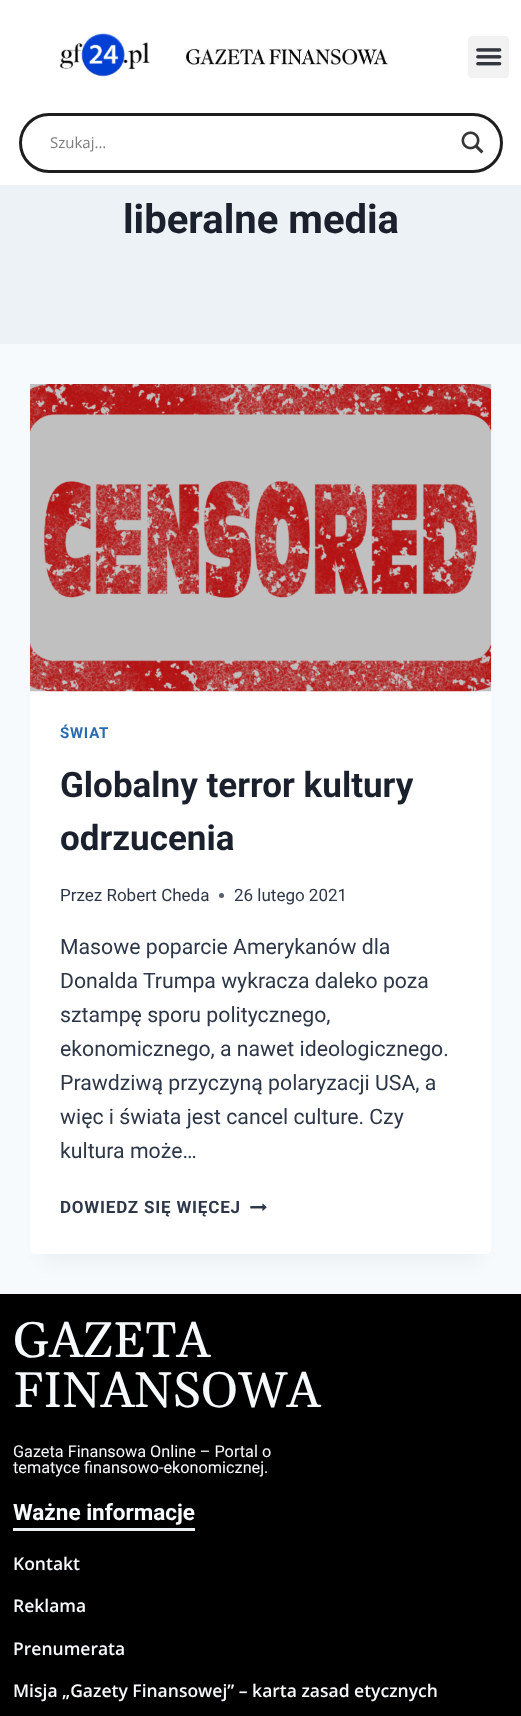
async function draw(canvas) {
  canvas.width = 521
  canvas.height = 1716
  const ctx = canvas.getContext('2d')
  ctx.miterLimit = 4
  ctx.fontKerning = 'normal'
  async function loadImage(src) {
    const img = new Image()
    img.src = src
    await img.decode()
    return img
  }

  ctx.fillStyle = '#f7fafc'
  ctx.fillRect(0, 0, 521, 1716)
  ctx.fillStyle = '#fff'
  ctx.fillRect(0, 0, 521, 185)
  ctx.drawImage(await loadImage('image0.png'), 59, 33, 91, 44)
  ctx.drawImage(await loadImage('image1.png'), 185, 48, 204, 20)
  ctx.fillStyle = '#f2f2f2'
  ctx.beginPath()
  ctx.roundRect(468, 36, 41, 42, 4)
  ctx.fill()
  ctx.drawImage(await loadImage('image2.png'), 476, 48, 26, 18)
  ctx.beginPath()
  ctx.roundRect(20.5, 114.5, 481, 57, 28.5)
  ctx.strokeStyle = '#1e1e1e'
  ctx.lineWidth = 3
  ctx.stroke()
  ctx.font = '15px Open Sans'
  ctx.fillStyle = '#7d7d7d'
  ctx.fillText('Szukaj...', 50, 148)
  ctx.drawImage(await loadImage('image3.png'), 461, 131, 23, 23)
  ctx.fillStyle = '#edf2f7'
  ctx.fillRect(0, 185, 521, 159)
  ctx.font = 'bold 40px Roboto'
  ctx.fillStyle = '#1a202c'
  ctx.fillText('liberalne media', 123, 233)
  ctx.fillStyle = '#0000000d'
  ctx.filter = 'blur(9.5px)'
  ctx.beginPath()
  ctx.rect(43, 415, 436, 845)
  ctx.fill()
  ctx.filter = 'none'
  ctx.fillStyle = '#fff'
  ctx.beginPath()
  ctx.roundRect(30, 384, 461, 870, 5)
  ctx.fill()
  ctx.drawImage(await loadImage('image4.png'), 30, 384, 462, 308)
  ctx.letterSpacing = '0.75px'
  ctx.font = 'bold 15px Roboto'
  ctx.fillStyle = '#2b6cb0'
  ctx.fillText('ŚWIAT', 60, 738)
  ctx.letterSpacing = '0px'
  ctx.font = 'bold 35px Roboto'
  ctx.fillStyle = '#1a202c'
  ctx.fillText('Globalny terror kultury', 60, 797)
  ctx.fillText('odrzucenia', 60, 850)
  ctx.font = '17px Roboto'
  ctx.fillStyle = '#2d3748'
  ctx.fillText('Przez Robert Cheda', 60, 901)
  ctx.fillStyle = '#575f6d'
  ctx.beginPath()
  ctx.arc(221.5, 895.5, 2.5, 0, 2 * Math.PI)
  ctx.fill()
  ctx.fillStyle = '#2d3748'
  ctx.fillText('26 lutego 2021', 234, 901)
  ctx.font = '21.25px Roboto'
  ctx.fillText('Masowe poparcie Amerykanów dla', 60, 954)
  ctx.fillText('Donalda Trumpa wykracza daleko poza', 60, 988)
  ctx.fillText('sztampę sporu politycznego,', 60, 1022)
  ctx.fillText('ekonomicznego, a nawet ideologicznego.', 60, 1056)
  ctx.fillText('Prawdziwą przyczyną polaryzacji USA, a', 60, 1090)
  ctx.fillText('więc i świata jest cancel culture. Czy', 60, 1124)
  ctx.fillText('kultura może…', 60, 1158)
  ctx.letterSpacing = '0.8px'
  ctx.font = 'bold 17px Roboto'
  ctx.fillText('DOWIEDZ SIĘ WIĘCEJ', 60, 1213)
  ctx.drawImage(await loadImage('image5.png'), 250, 1203, 17, 8)
  ctx.fillStyle = '#000'
  ctx.fillRect(0, 1294, 521, 422)
  ctx.letterSpacing = '0px'
  ctx.font = '50px Gelasio'
  ctx.fillStyle = '#f7fafc'
  ctx.fillText('GAZETA', 13, 1357)
  ctx.fillText('FINANSOWA', 13, 1407)
  ctx.font = '16.25px Roboto'
  ctx.fillText('Gazeta Finansowa Online – Portal o', 13, 1457)
  ctx.fillText('tematyce finansowo-ekonomicznej.', 13, 1473)
  ctx.fillStyle = '#edf2f7'
  ctx.fillRect(13, 1528, 182, 3)
  ctx.font = 'bold 22.5px Roboto'
  ctx.fillStyle = '#f7fafc'
  ctx.fillText('Ważne informacje', 13, 1520)
  ctx.font = '600 17.5px Open Sans'
  ctx.fillText('Kontakt', 13, 1570)
  ctx.fillText('Reklama', 13, 1612)
  ctx.fillText('Prenumerata', 13, 1655)
  ctx.fillText('Misja „Gazety Finansowej” – karta zasad etycznych', 13, 1697)
}

draw(document.querySelector('canvas'))
